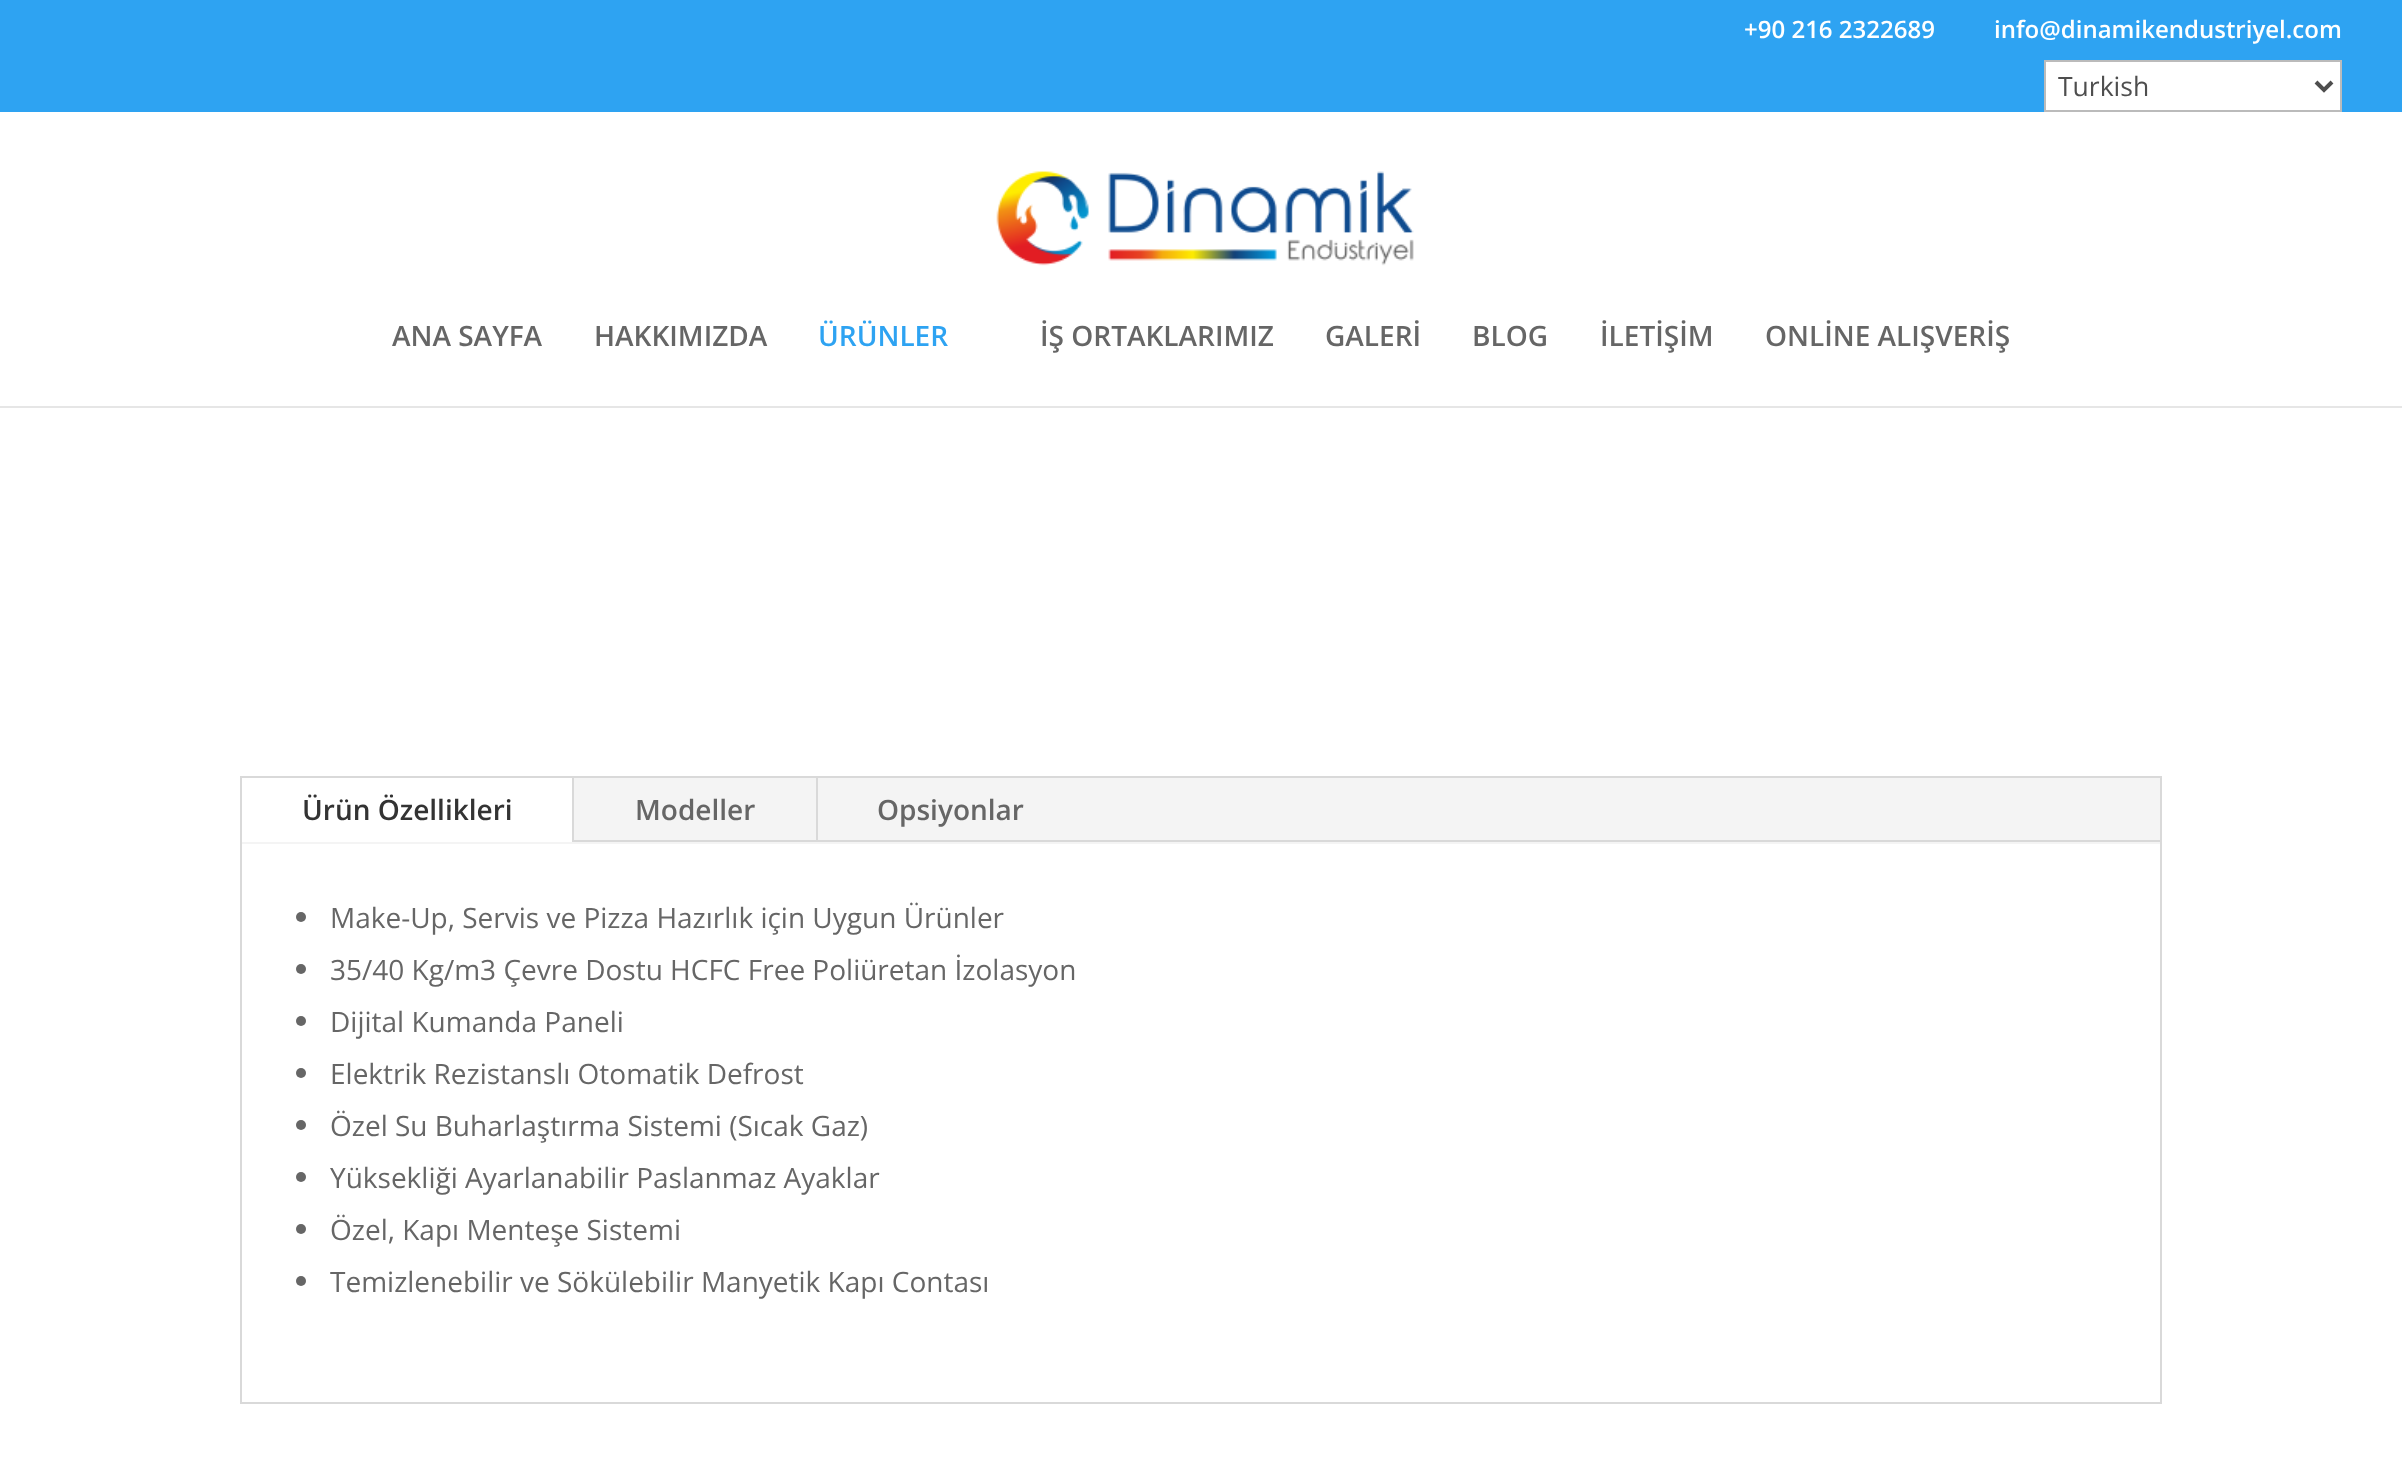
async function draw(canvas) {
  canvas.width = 2402
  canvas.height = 1458
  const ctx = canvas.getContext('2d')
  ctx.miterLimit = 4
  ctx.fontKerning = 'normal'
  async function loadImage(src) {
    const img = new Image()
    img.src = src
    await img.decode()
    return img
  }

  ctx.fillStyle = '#fff'
  ctx.fillRect(0, 0, 2402, 1458)
  ctx.fillStyle = '#2ea3f2'
  ctx.fillRect(0, 0, 2402, 112)
  ctx.font = '600 24px Open Sans'
  ctx.fillStyle = '#fff'
  ctx.fillText('+90 216 2322689', 1744, 38)
  ctx.fillText('info@dinamikendustriyel.com', 1994, 38)
  ctx.beginPath()
  ctx.rect(2045, 61, 296, 50)
  ctx.fill()
  ctx.strokeStyle = '#bbb'
  ctx.lineWidth = 2
  ctx.stroke()
  ctx.beginPath()
  ctx.moveTo(2316, 82)
  ctx.lineTo(2324, 90)
  ctx.lineTo(2332, 82)
  ctx.strokeStyle = '#4e4e4e'
  ctx.lineWidth = 4
  ctx.stroke()
  ctx.font = '26.5px Open Sans'
  ctx.fillStyle = '#4e4e4e'
  ctx.fillText('Turkish', 2058, 96)
  ctx.fillStyle = '#e6e6e6'
  ctx.fillRect(0, 406, 2402, 2)
  ctx.drawImage(await loadImage('image0.png'), 996, 171, 418, 95)
  ctx.font = '600 28px Open Sans'
  ctx.fillStyle = '#666'
  ctx.fillText('ANA SAYFA', 392, 346)
  ctx.fillText('HAKKIMIZDA', 594, 346)
  ctx.fillStyle = '#2ea3f2'
  ctx.fillText('ÜRÜNLER', 818, 346)
  ctx.fillStyle = '#666'
  ctx.fillText('İŞ ORTAKLARIMIZ', 1040, 346)
  ctx.fillText('GALERİ', 1325, 346)
  ctx.fillText('BLOG', 1472, 346)
  ctx.fillText('İLETİŞİM', 1600, 346)
  ctx.fillText('ONLİNE ALIŞVERİŞ', 1765, 346)
  ctx.strokeStyle = '#d9d9d9'
  ctx.lineWidth = 2
  ctx.strokeRect(241, 777, 1920, 626)
  ctx.fillStyle = '#f4f4f4'
  ctx.fillRect(242, 778, 1918, 66)
  ctx.fillStyle = '#fff'
  ctx.fillRect(242, 778, 330, 64)
  ctx.fillStyle = '#d9d9d9'
  ctx.fillRect(572, 778, 2, 64)
  ctx.fillStyle = '#333'
  ctx.fillText('Ürün Özellikleri', 302, 820)
  ctx.fillStyle = '#d9d9d9'
  ctx.fillRect(574, 840, 1586, 2)
  ctx.fillRect(816, 778, 2, 64)
  ctx.fillStyle = '#666'
  ctx.fillText('Modeller', 635, 820)
  ctx.fillText('Opsiyonlar', 877, 820)
  ctx.beginPath()
  ctx.arc(301, 917, 5, 0, 2 * Math.PI)
  ctx.fill()
  ctx.font = '28px Open Sans'
  ctx.fillText('Make-Up, Servis ve Pizza Hazırlık için Uygun Ürünler', 330, 928)
  ctx.beginPath()
  ctx.arc(301, 969, 5, 0, 2 * Math.PI)
  ctx.fill()
  ctx.fillText('35/40 Kg/m3 Çevre Dostu HCFC Free Poliüretan İzolasyon', 330, 980)
  ctx.beginPath()
  ctx.arc(301, 1021, 5, 0, 2 * Math.PI)
  ctx.fill()
  ctx.fillText('Dijital Kumanda Paneli', 330, 1032)
  ctx.beginPath()
  ctx.arc(301, 1073, 5, 0, 2 * Math.PI)
  ctx.fill()
  ctx.fillText('Elektrik Rezistanslı Otomatik Defrost', 330, 1084)
  ctx.beginPath()
  ctx.arc(301, 1125, 5, 0, 2 * Math.PI)
  ctx.fill()
  ctx.fillText('Özel Su Buharlaştırma Sistemi (Sıcak Gaz)', 330, 1136)
  ctx.beginPath()
  ctx.arc(301, 1177, 5, 0, 2 * Math.PI)
  ctx.fill()
  ctx.fillText('Yüksekliği Ayarlanabilir Paslanmaz Ayaklar', 330, 1188)
  ctx.beginPath()
  ctx.arc(301, 1229, 5, 0, 2 * Math.PI)
  ctx.fill()
  ctx.fillText('Özel, Kapı Menteşe Sistemi', 330, 1240)
  ctx.beginPath()
  ctx.arc(301, 1281, 5, 0, 2 * Math.PI)
  ctx.fill()
  ctx.fillText('Temizlenebilir ve Sökülebilir Manyetik Kapı Contası', 330, 1292)
}

draw(document.querySelector('canvas'))
